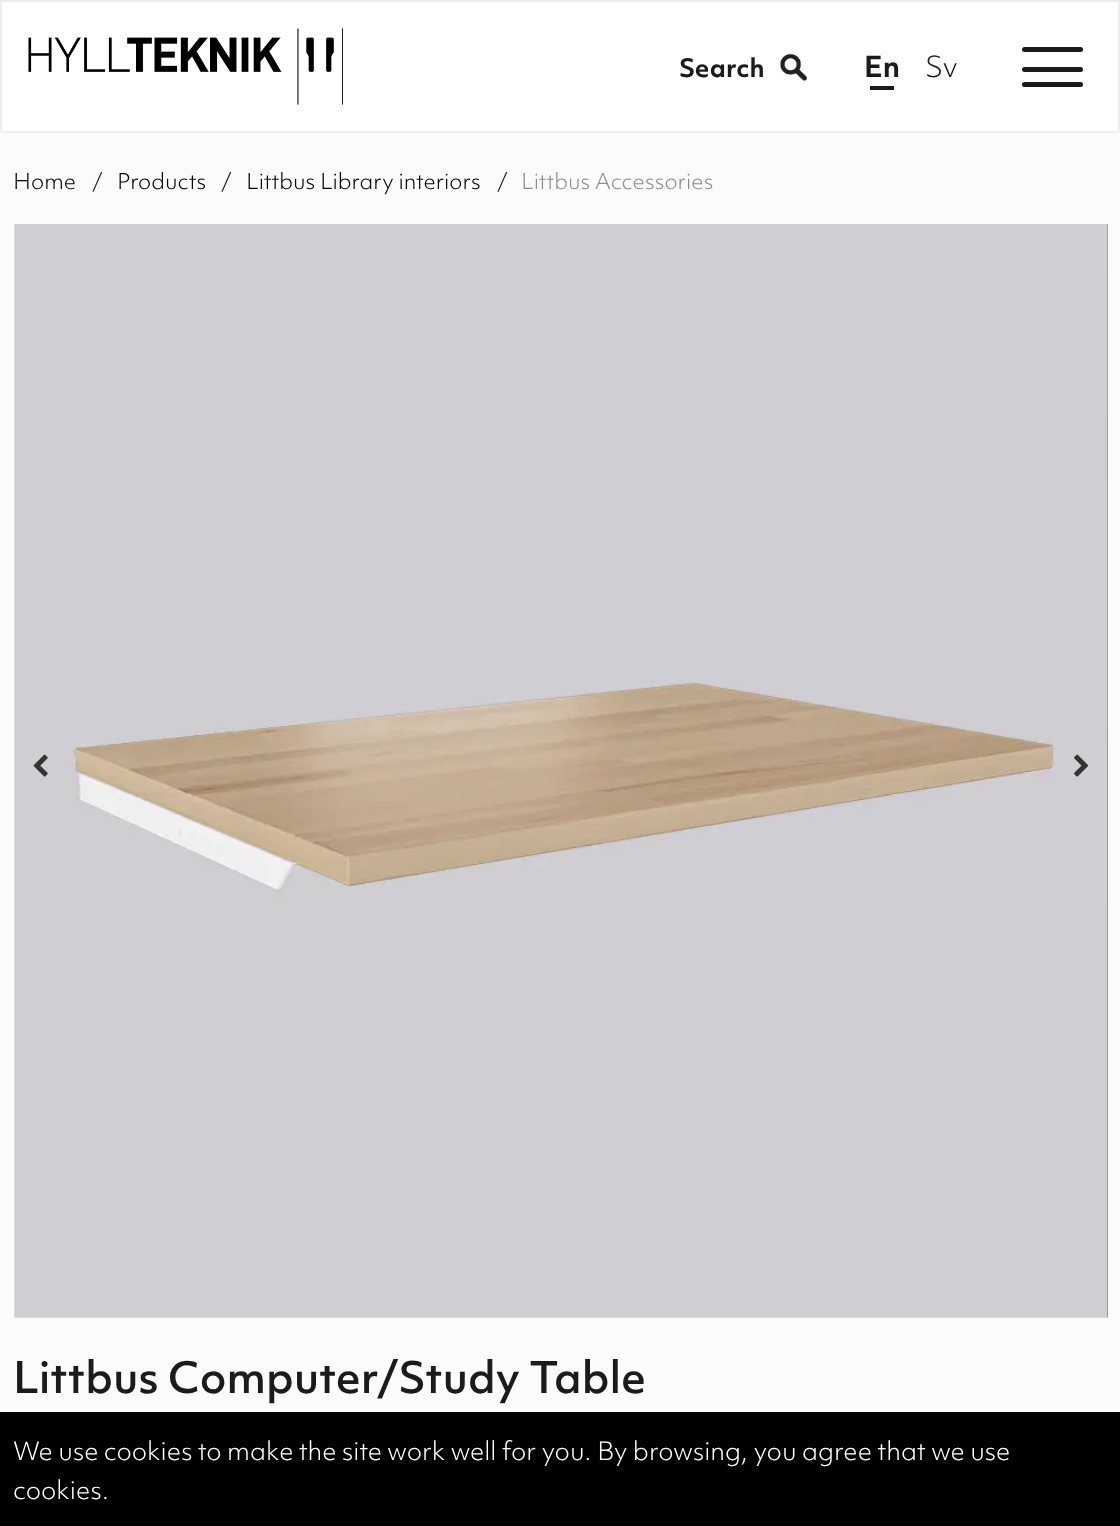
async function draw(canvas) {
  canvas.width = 1120
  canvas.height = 1526
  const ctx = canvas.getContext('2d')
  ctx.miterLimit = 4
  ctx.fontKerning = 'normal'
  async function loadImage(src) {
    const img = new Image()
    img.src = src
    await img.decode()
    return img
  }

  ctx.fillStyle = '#fbfbfb'
  ctx.fillRect(0, 0, 1120, 1526)
  ctx.fillStyle = '#fff'
  ctx.beginPath()
  ctx.rect(1, 1, 1118, 131)
  ctx.fill()
  ctx.strokeStyle = '#eee'
  ctx.lineWidth = 2
  ctx.stroke()
  ctx.drawImage(await loadImage('image0.png'), 28, 28, 315, 77)
  ctx.font = 'bold 24.5px "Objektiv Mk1"'
  ctx.fillStyle = '#1b1b1b'
  ctx.fillText('Search', 679, 77)
  ctx.drawImage(await loadImage('image1.png'), 780, 54, 27, 27)
  ctx.font = 'bold 28px "Objektiv Mk1"'
  ctx.fillText('En', 864, 77)
  ctx.fillRect(870, 86, 24, 4)
  ctx.font = '300 28px "Objektiv Mk1"'
  ctx.fillText('Sv', 925, 77)
  ctx.beginPath()
  ctx.roundRect(1022, 82, 61, 5, 2.5)
  ctx.fill()
  ctx.beginPath()
  ctx.roundRect(1022, 47, 61, 5, 2.5)
  ctx.fill()
  ctx.beginPath()
  ctx.roundRect(1022, 67, 61, 5, 2.5)
  ctx.fill()
  ctx.font = '300 21px "Objektiv Mk1"'
  ctx.fillStyle = '#000'
  ctx.fillText('Home', 13, 189)
  ctx.fillStyle = '#1b1b1b'
  ctx.fillText('/', 92, 189)
  ctx.fillStyle = '#000'
  ctx.fillText('Products', 117, 189)
  ctx.fillStyle = '#1b1b1b'
  ctx.fillText('/', 221, 189)
  ctx.fillStyle = '#000'
  ctx.fillText('Littbus Library interiors', 246, 189)
  ctx.fillStyle = '#1b1b1b'
  ctx.fillText('/', 497, 189)
  ctx.fillStyle = '#8e8e8e'
  ctx.fillText('Littbus Accessories', 521, 189)
  ctx.drawImage(await loadImage('image2.png'), 14, 224, 1094, 1094)
  ctx.drawImage(await loadImage('image3.png'), 1107, 224, 1, 1094)
  ctx.drawImage(await loadImage('image4.png'), 33, 754, 15, 23)
  ctx.drawImage(await loadImage('image5.png'), 1074, 754, 15, 23)
  ctx.font = '500 42px "Objektiv Mk1"'
  ctx.fillStyle = '#1b1b1b'
  ctx.fillText('Littbus Computer/Study Table', 13, 1393)
  ctx.fillStyle = '#000'
  ctx.fillRect(0, 1412, 1120, 114)
  ctx.font = '300 24.5px "Objektiv Mk1"'
  ctx.fillStyle = '#fff'
  ctx.fillText('We use cookies to make the site work well for you. By browsing, you agree that we use', 13, 1460)
  ctx.fillText('cookies.', 13, 1499)
}

draw(document.querySelector('canvas'))
